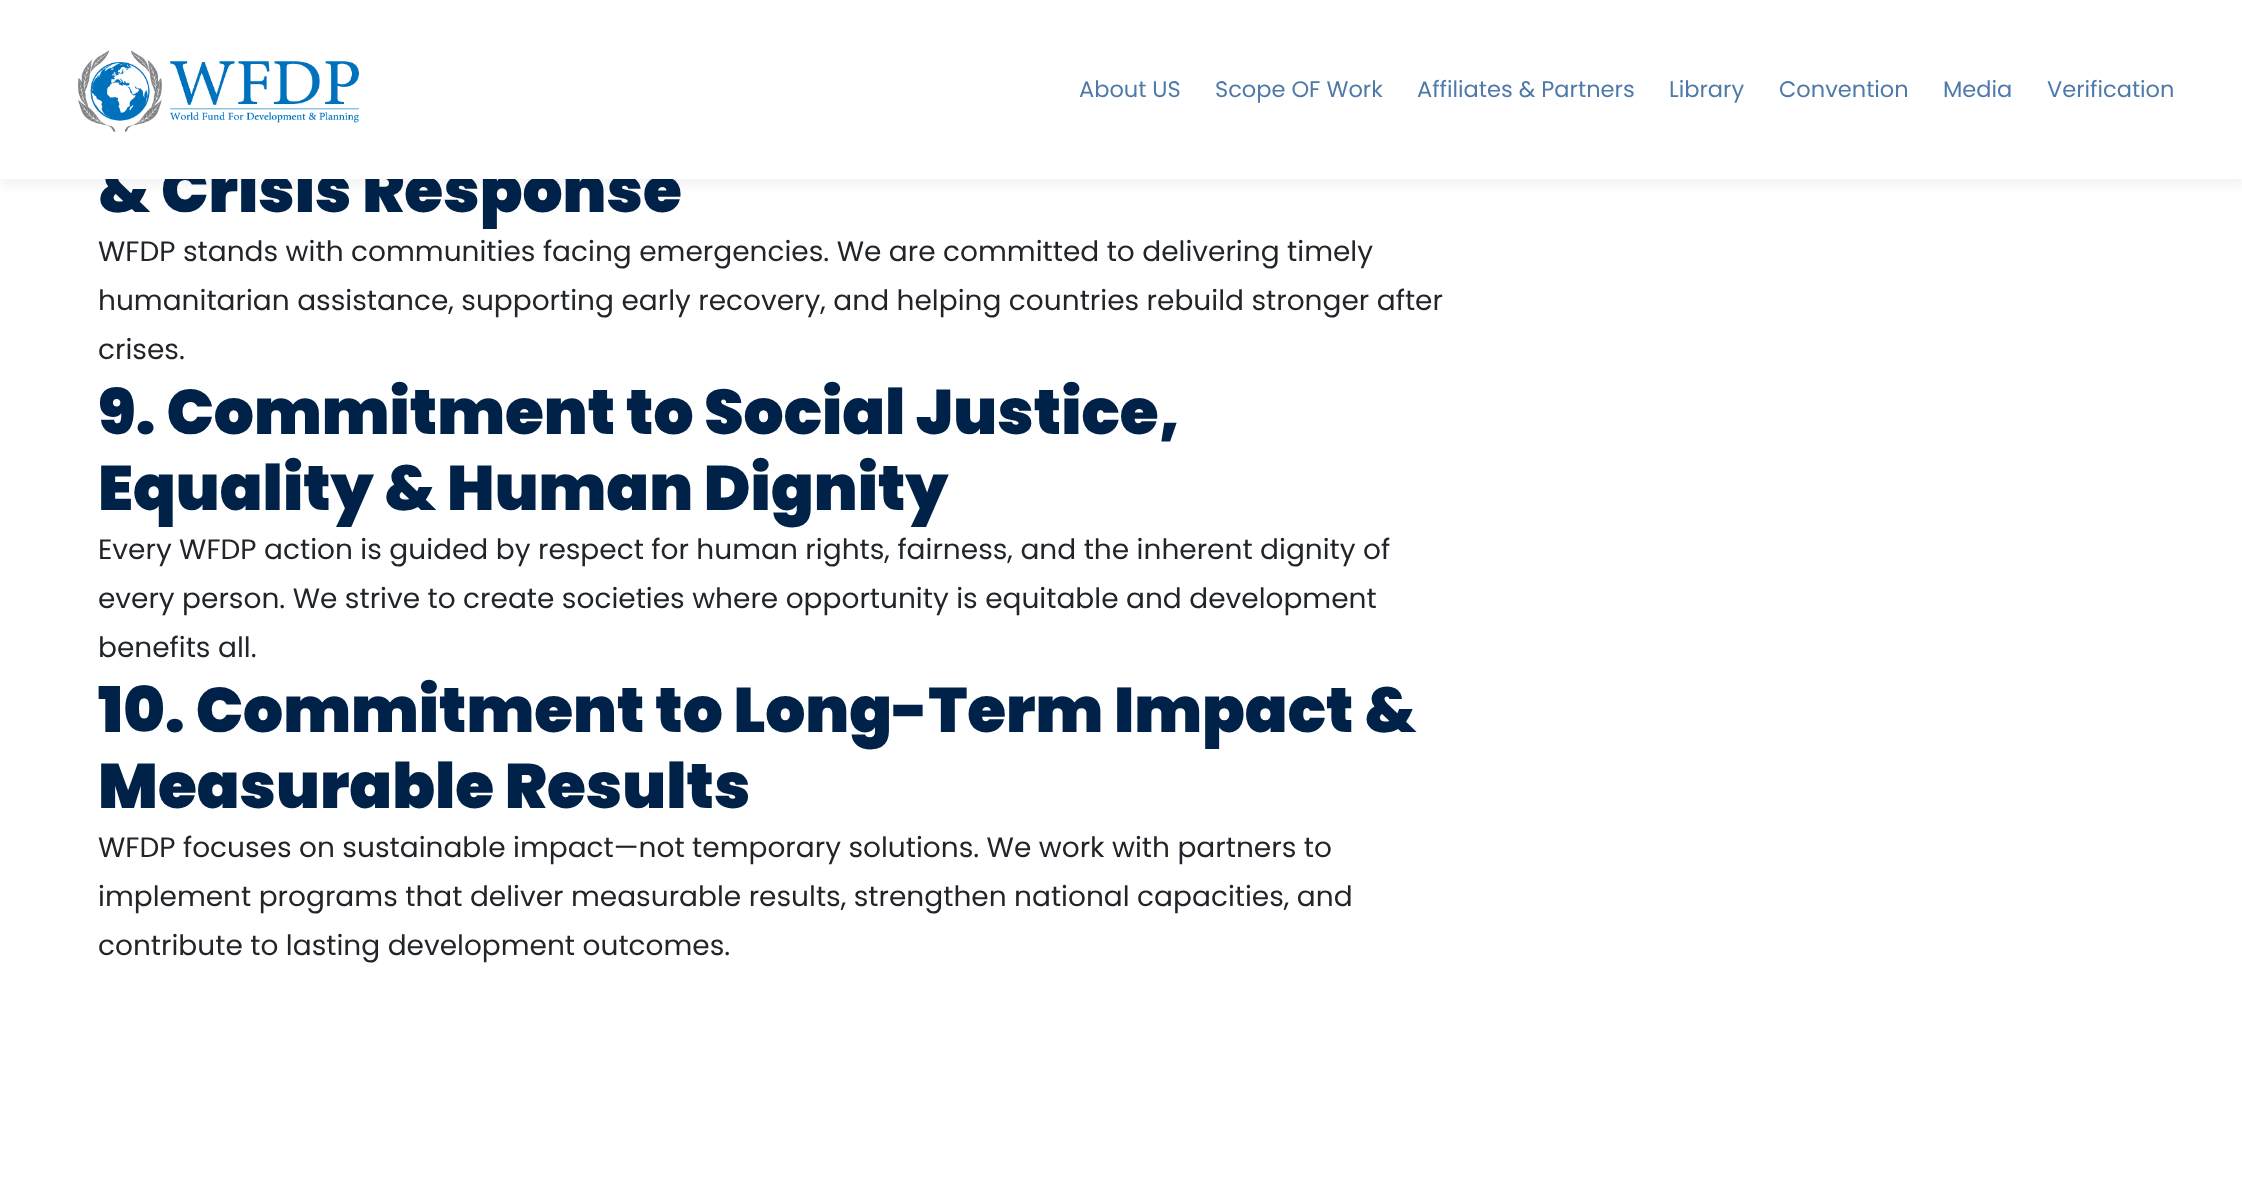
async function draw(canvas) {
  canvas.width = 2242
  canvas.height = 1181
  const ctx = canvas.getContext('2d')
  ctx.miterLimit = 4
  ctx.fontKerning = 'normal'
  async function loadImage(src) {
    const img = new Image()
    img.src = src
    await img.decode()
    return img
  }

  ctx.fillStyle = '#fff'
  ctx.fillRect(0, 0, 2242, 1181)
  ctx.fillStyle = '#0000000a'
  ctx.filter = 'blur(4.5px)'
  ctx.beginPath()
  ctx.rect(0, 9, 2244, 178)
  ctx.fill()
  ctx.filter = 'none'
  ctx.font = '900 63px Poppins'
  ctx.fillStyle = '#002249'
  ctx.fillText('& Crisis Response', 98, 212)
  ctx.fillStyle = '#fff'
  ctx.fillRect(0, 6, 2242, 173)
  ctx.drawImage(await loadImage('image0.png'), 77, 50, 282, 82)
  ctx.font = '22.5px Poppins'
  ctx.fillStyle = '#4f79a9'
  ctx.fillText('About US', 1079, 97)
  ctx.fillText('Scope OF Work', 1215, 97)
  ctx.fillText('Affiliates & Partners', 1417, 97)
  ctx.fillText('Library', 1669, 97)
  ctx.fillText('Convention', 1779, 97)
  ctx.fillText('Media', 1943, 97)
  ctx.fillText('Verification', 2047, 97)
  ctx.font = '28px Poppins'
  ctx.fillStyle = '#212529'
  ctx.fillText('WFDP stands with communities facing emergencies. We are committed to delivering timely', 98, 261)
  ctx.fillText('humanitarian assistance, supporting early recovery, and helping countries rebuild stronger after', 98, 310)
  ctx.fillText('crises.', 98, 359)
  ctx.font = '900 63px Poppins'
  ctx.fillStyle = '#002249'
  ctx.fillText('9. Commitment to Social Justice,', 98, 434)
  ctx.fillText('Equality & Human Dignity', 98, 510)
  ctx.font = '28px Poppins'
  ctx.fillStyle = '#212529'
  ctx.fillText('Every WFDP action is guided by respect for human rights, fairness, and the inherent dignity of', 98, 559)
  ctx.fillText('every person. We strive to create societies where opportunity is equitable and development', 98, 608)
  ctx.fillText('benefits all.', 98, 657)
  ctx.font = '900 63px Poppins'
  ctx.fillStyle = '#002249'
  ctx.fillText('10. Commitment to Long-Term Impact &', 98, 732)
  ctx.fillText('Measurable Results', 98, 808)
  ctx.font = '28px Poppins'
  ctx.fillStyle = '#212529'
  ctx.fillText('WFDP focuses on sustainable impact—not temporary solutions. We work with partners to', 98, 857)
  ctx.fillText('implement programs that deliver measurable results, strengthen national capacities, and', 98, 906)
  ctx.fillText('contribute to lasting development outcomes.', 98, 955)
}

draw(document.querySelector('canvas'))
